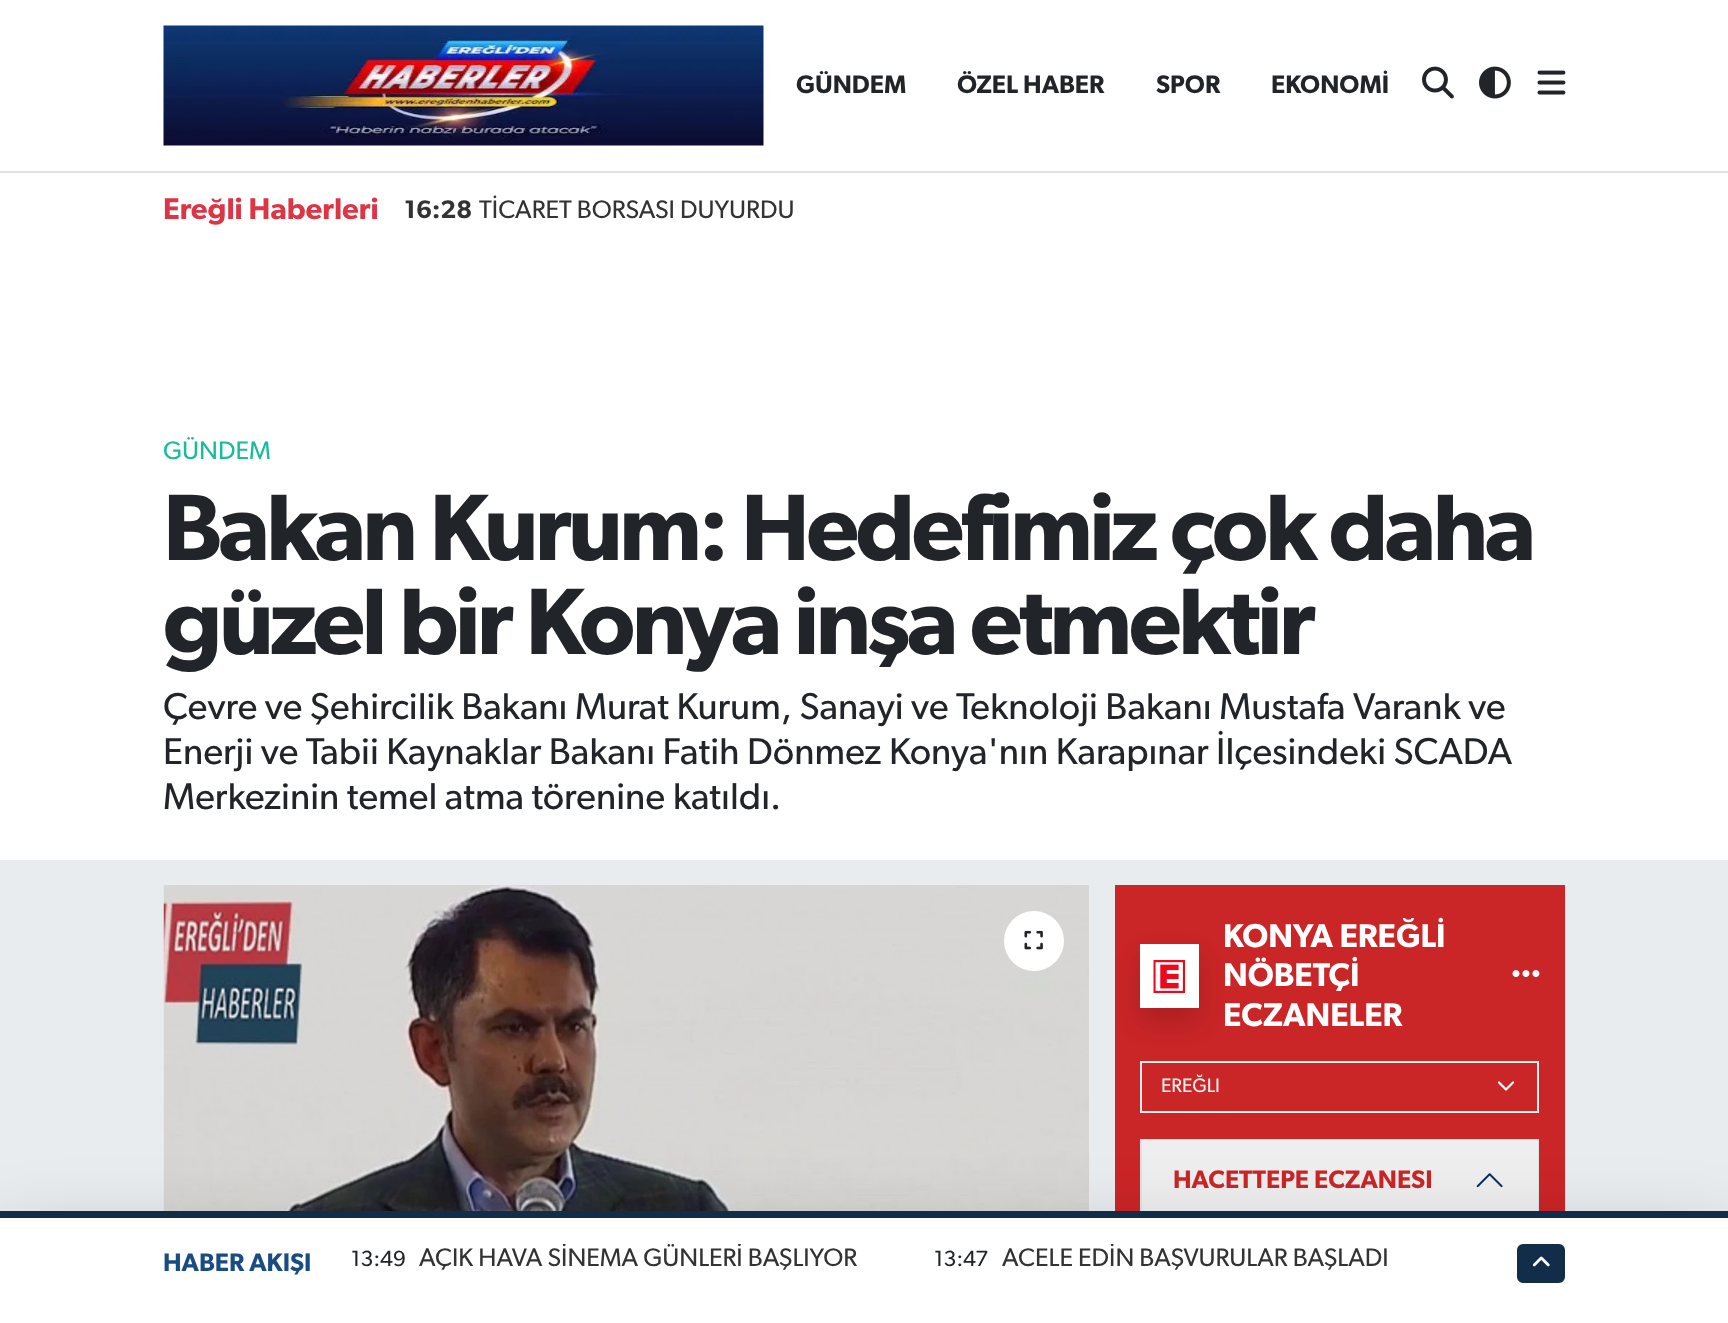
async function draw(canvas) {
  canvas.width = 1728
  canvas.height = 1323
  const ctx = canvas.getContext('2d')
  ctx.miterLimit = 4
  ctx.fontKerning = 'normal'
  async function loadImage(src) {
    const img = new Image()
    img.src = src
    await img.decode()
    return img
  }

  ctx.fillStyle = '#e9ecef'
  ctx.fillRect(0, 0, 1728, 1323)
  ctx.fillStyle = '#fff'
  ctx.fillRect(0, 0, 1728, 171)
  ctx.fillStyle = '#dee2e6'
  ctx.fillRect(0, 171, 1728, 2)
  ctx.drawImage(await loadImage('image0.png'), 163, 25, 601, 121)
  ctx.font = '600 25.5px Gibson'
  ctx.fillStyle = '#212529'
  ctx.fillText('GÜNDEM', 796, 93)
  ctx.fillText('ÖZEL HABER', 957, 93)
  ctx.fillText('SPOR', 1156, 93)
  ctx.fillText('EKONOMİ', 1271, 93)
  ctx.drawImage(await loadImage('image1.png'), 1422, 66, 32, 33)
  ctx.drawImage(await loadImage('image2.png'), 1479, 66, 32, 33)
  ctx.drawImage(await loadImage('image3.png'), 1537, 70, 29, 25)
  ctx.fillStyle = '#fff'
  ctx.fillRect(0, 173, 1728, 687)
  ctx.font = '600 30px Gibson'
  ctx.fillStyle = '#dc3545'
  ctx.fillText('Ereğli Haberleri', 163, 219)
  ctx.font = '600 25.5px Gibson'
  ctx.fillStyle = '#333'
  ctx.fillText('16:28', 404, 218)
  ctx.font = '25.5px Gibson'
  ctx.fillText('TİCARET BORSASI DUYURDU', 479, 218)
  ctx.fillStyle = '#1abc9c'
  ctx.fillText('GÜNDEM', 163, 459)
  ctx.letterSpacing = '-3.45px'
  ctx.font = '600 94.5px Gibson'
  ctx.fillStyle = '#212529'
  ctx.fillText('Bakan Kurum: Hedefimiz çok daha', 163, 560)
  ctx.fillText('güzel bir Konya inşa etmektir', 163, 654)
  ctx.letterSpacing = '0px'
  ctx.font = '37.5px Gibson'
  ctx.fillText('Çevre ve Şehircilik Bakanı Murat Kurum, Sanayi ve Teknoloji Bakanı Mustafa Varank ve', 163, 719)
  ctx.fillText('Enerji ve Tabii Kaynaklar Bakanı Fatih Dönmez Konya\'nın Karapınar İlçesindeki SCADA', 163, 764)
  ctx.fillText('Merkezinin temel atma törenine katıldı.', 163, 809)
  ctx.drawImage(await loadImage('image4.png'), 163, 885, 926, 326)
  ctx.fillStyle = '#fff'
  ctx.beginPath()
  ctx.arc(1034, 941, 30, 0, 2 * Math.PI)
  ctx.fill()
  ctx.drawImage(await loadImage('image5.png'), 1024, 930, 19, 20)
  ctx.fillStyle = '#ca2527'
  ctx.fillRect(1115, 885, 450, 326)
  ctx.fillStyle = '#00000026'
  ctx.filter = 'blur(13px)'
  ctx.beginPath()
  ctx.rect(1140, 957, 59, 65)
  ctx.fill()
  ctx.filter = 'none'
  ctx.fillStyle = '#fff'
  ctx.fillRect(1140, 944, 59, 64)
  ctx.drawImage(await loadImage('image6.png'), 1153, 960, 32, 33)
  ctx.font = '600 33px Gibson'
  ctx.fillText('KONYA EREĞLİ', 1223, 947)
  ctx.fillText('NÖBETÇİ', 1223, 986)
  ctx.fillText('ECZANELER', 1223, 1026)
  ctx.drawImage(await loadImage('image7.png'), 1512, 970, 28, 7)
  ctx.beginPath()
  ctx.moveTo(1499, 1082.5)
  ctx.lineTo(1506, 1089.5)
  ctx.lineTo(1513, 1082.5)
  ctx.strokeStyle = '#fff'
  ctx.lineWidth = 2.2
  ctx.lineCap = 'round'
  ctx.lineJoin = 'round'
  ctx.stroke()
  ctx.strokeStyle = '#efefef'
  ctx.lineWidth = 2
  ctx.lineJoin = 'miter'
  ctx.strokeRect(1141, 1062, 397, 50)
  ctx.font = '19.5px Gibson'
  ctx.fillStyle = '#efefef'
  ctx.fillText('EREĞLI', 1161, 1092)
  ctx.strokeStyle = '#dee2e6'
  ctx.strokeRect(1141, 1140, 397, 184)
  ctx.fillStyle = '#eee'
  ctx.fillRect(1142, 1140, 396, 71)
  ctx.font = '600 25.5px Gibson'
  ctx.fillStyle = '#ca2527'
  ctx.fillText('HACETTEPE ECZANESI', 1173, 1188)
  ctx.drawImage(await loadImage('image8.png'), 1476, 1173, 27, 15)
  ctx.fillStyle = '#0000002e'
  ctx.filter = 'blur(38px)'
  ctx.beginPath()
  ctx.rect(0, 1236, 1728, 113)
  ctx.fill()
  ctx.filter = 'none'
  ctx.fillStyle = '#fff'
  ctx.fillRect(0, 1218, 1728, 105)
  ctx.fillStyle = '#122d4a'
  ctx.fillRect(0, 1211, 1728, 7)
  ctx.fillStyle = '#194c82'
  ctx.fillText('HABER AKIŞI', 163, 1271)
  ctx.font = '22px Gibson'
  ctx.fillStyle = '#212529'
  ctx.fillText('13:49', 351, 1266)
  ctx.save()
  ctx.beginPath()
  ctx.rect(419, 1244, 438, 33)
  ctx.clip()
  ctx.font = '25.5px Gibson'
  ctx.fillStyle = '#333'
  ctx.fillText('AÇIK HAVA SİNEMA GÜNLERİ BAŞLIYOR', 419, 1266)
  ctx.restore()
  ctx.fillText('13:47', 934, 1266)
  ctx.save()
  ctx.beginPath()
  ctx.rect(1002, 1244, 387, 33)
  ctx.clip()
  ctx.font = '25.5px Gibson'
  ctx.fillStyle = '#333'
  ctx.fillText('ACELE EDİN BAŞVURULAR BAŞLADI', 1002, 1266)
  ctx.restore()
  ctx.fillStyle = '#122d4a'
  ctx.beginPath()
  ctx.roundRect(1518, 1245, 46, 37, 5)
  ctx.fill()
  ctx.strokeStyle = '#122d4a'
  ctx.stroke()
  ctx.drawImage(await loadImage('image9.png'), 1532, 1256, 18, 11)
}

draw(document.querySelector('canvas'))
